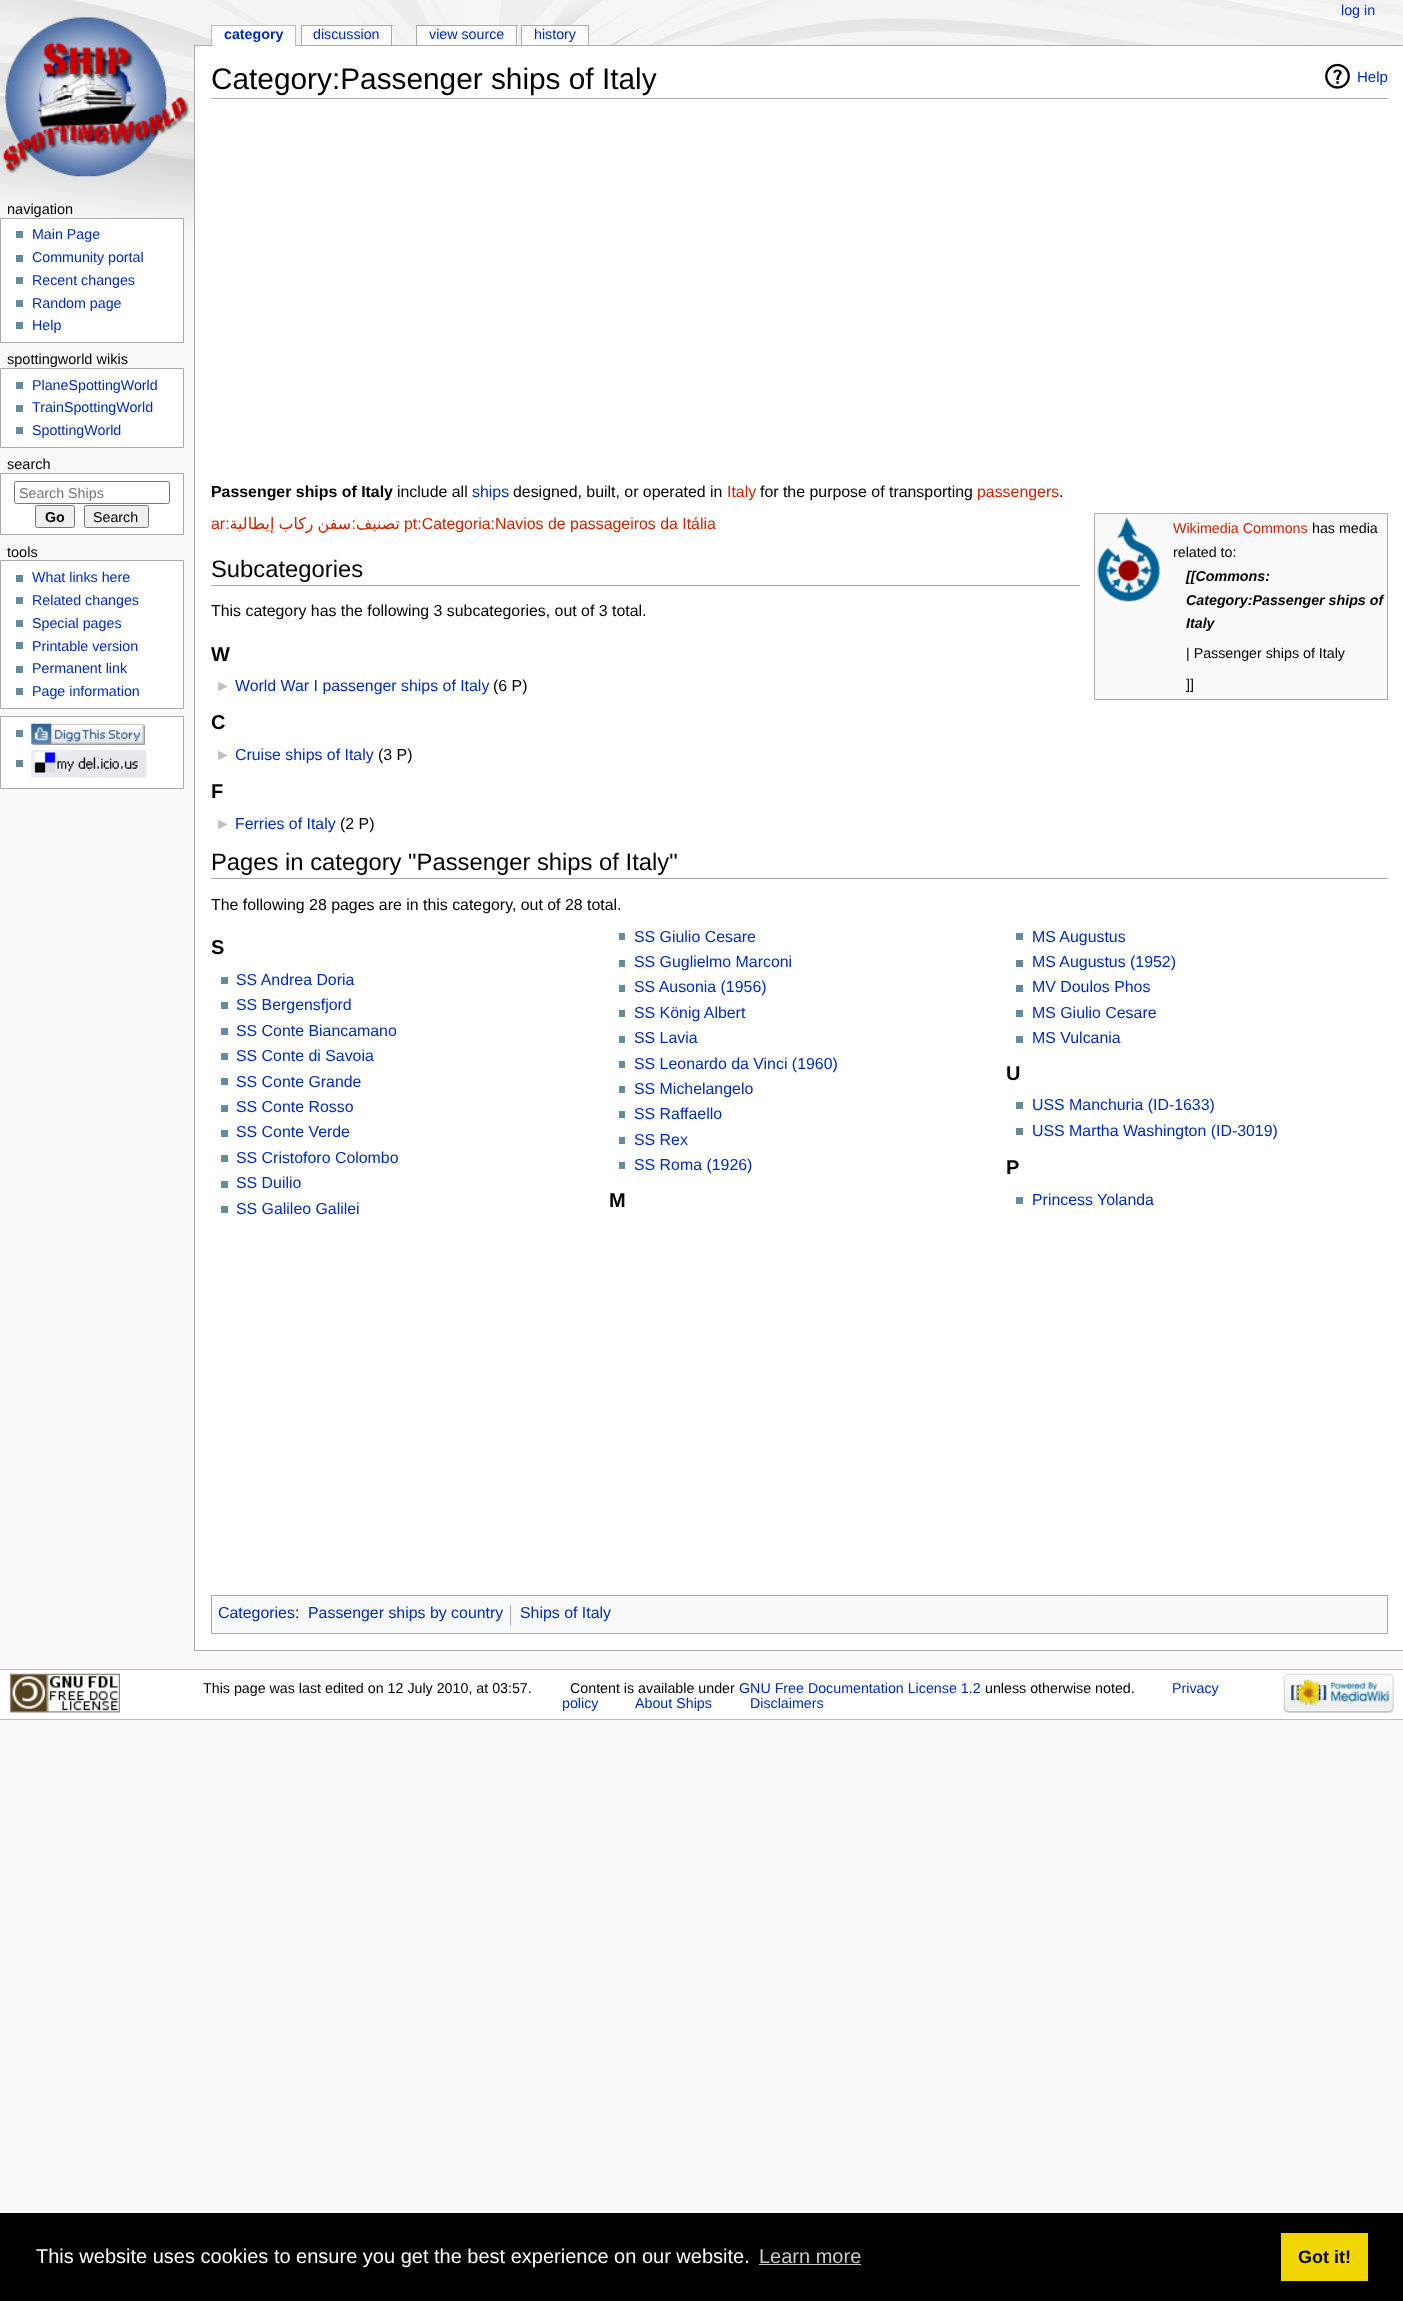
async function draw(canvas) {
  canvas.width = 1403
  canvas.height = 2301
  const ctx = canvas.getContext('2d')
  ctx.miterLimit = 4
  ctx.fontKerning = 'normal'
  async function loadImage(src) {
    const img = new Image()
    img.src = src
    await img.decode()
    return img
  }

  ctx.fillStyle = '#f9f9f9'
  ctx.fillRect(0, 0, 1403, 2301)
  ctx.drawImage(await loadImage('image0.png'), 0, 0, 1403, 263)
  ctx.font = '14.25px Liberation Sans'
  ctx.fillStyle = '#002bb8'
  ctx.fillText('log in', 1341, 15)
  ctx.drawImage(await loadImage('image1.png'), 3, 17, 187, 160)
  ctx.fillStyle = '#aaa'
  ctx.fillRect(194, 45, 1209, 1)
  ctx.fillStyle = '#fff'
  ctx.fillRect(213, 26, 82, 20)
  ctx.font = 'bold 14.25px Liberation Sans'
  ctx.fillStyle = '#002bb8'
  ctx.fillText('category', 224, 39)
  ctx.fillStyle = '#fff'
  ctx.fillRect(212, 26, 1, 19)
  ctx.fillStyle = '#fabd23'
  ctx.fillRect(211, 25, 85, 1)
  ctx.fillRect(295, 25, 1, 20)
  ctx.fillRect(211, 25, 1, 20)
  ctx.fillStyle = '#fff'
  ctx.fillRect(302, 26, 91, 19)
  ctx.fillStyle = '#fbfbfb'
  ctx.fillRect(303, 26, 88, 19)
  ctx.font = '14.25px Liberation Sans'
  ctx.fillStyle = '#002bb8'
  ctx.fillText('discussion', 313, 39)
  ctx.fillStyle = '#aaa'
  ctx.fillRect(301, 25, 92, 1)
  ctx.fillRect(391, 25, 1, 20)
  ctx.fillRect(301, 25, 1, 20)
  ctx.fillStyle = '#fff'
  ctx.fillRect(417, 26, 101, 19)
  ctx.fillStyle = '#fbfbfb'
  ctx.fillRect(418, 26, 98, 19)
  ctx.fillStyle = '#002bb8'
  ctx.fillText('view source', 429, 39)
  ctx.fillStyle = '#aaa'
  ctx.fillRect(416, 25, 102, 1)
  ctx.fillRect(516, 25, 1, 20)
  ctx.fillRect(416, 25, 1, 20)
  ctx.fillStyle = '#fbfbfb'
  ctx.fillRect(523, 26, 65, 19)
  ctx.fillStyle = '#002bb8'
  ctx.fillText('history', 534, 39)
  ctx.fillStyle = '#fff'
  ctx.fillRect(522, 26, 1, 19)
  ctx.fillStyle = '#aaa'
  ctx.fillRect(521, 25, 68, 1)
  ctx.fillRect(588, 25, 1, 20)
  ctx.fillRect(521, 25, 1, 20)
  ctx.font = '14.5px Liberation Sans'
  ctx.fillStyle = '#000'
  ctx.fillText('navigation', 7, 214)
  ctx.fillStyle = '#fff'
  ctx.beginPath()
  ctx.rect(0.5, 218.5, 183, 124)
  ctx.fill()
  ctx.strokeStyle = '#aaa'
  ctx.stroke()
  ctx.fillStyle = '#638c9c'
  ctx.fillRect(16, 231, 7, 7)
  ctx.font = '14.25px Liberation Sans'
  ctx.fillStyle = '#002bb8'
  ctx.fillText('Main Page', 32, 239)
  ctx.fillStyle = '#638c9c'
  ctx.fillRect(16, 255, 7, 7)
  ctx.fillStyle = '#002bb8'
  ctx.fillText('Community portal', 32, 262)
  ctx.fillStyle = '#638c9c'
  ctx.fillRect(16, 277, 7, 7)
  ctx.fillStyle = '#002bb8'
  ctx.fillText('Recent changes', 32, 285)
  ctx.fillStyle = '#638c9c'
  ctx.fillRect(16, 300, 7, 7)
  ctx.fillStyle = '#002bb8'
  ctx.fillText('Random page', 32, 308)
  ctx.fillStyle = '#638c9c'
  ctx.fillRect(16, 322, 7, 7)
  ctx.fillStyle = '#002bb8'
  ctx.fillText('Help', 32, 330)
  ctx.font = '14.5px Liberation Sans'
  ctx.fillStyle = '#000'
  ctx.fillText('spottingworld wikis', 7, 364)
  ctx.fillStyle = '#fff'
  ctx.beginPath()
  ctx.rect(0.5, 368.5, 183, 79)
  ctx.fill()
  ctx.stroke()
  ctx.fillStyle = '#638c9c'
  ctx.fillRect(16, 382, 7, 7)
  ctx.font = '14.25px Liberation Sans'
  ctx.fillStyle = '#002bb8'
  ctx.fillText('PlaneSpottingWorld', 32, 390)
  ctx.fillStyle = '#638c9c'
  ctx.fillRect(16, 405, 7, 7)
  ctx.fillStyle = '#002bb8'
  ctx.fillText('TrainSpottingWorld', 32, 412)
  ctx.fillStyle = '#638c9c'
  ctx.fillRect(16, 427, 7, 7)
  ctx.fillStyle = '#002bb8'
  ctx.fillText('SpottingWorld', 32, 435)
  ctx.font = '14.5px Liberation Sans'
  ctx.fillStyle = '#000'
  ctx.fillText('search', 7, 469)
  ctx.fillStyle = '#fff'
  ctx.beginPath()
  ctx.rect(0.5, 473.5, 183, 61)
  ctx.fill()
  ctx.stroke()
  ctx.beginPath()
  ctx.roundRect(14.5, 481.5, 155, 22, 2)
  ctx.strokeStyle = '#767676'
  ctx.stroke()
  ctx.font = '14.25px Liberation Sans'
  ctx.fillStyle = '#757575'
  ctx.fillText('Search Ships', 19, 498)
  ctx.fillStyle = '#efefef'
  ctx.beginPath()
  ctx.roundRect(35.5, 505.5, 39, 22, 2)
  ctx.fill()
  ctx.stroke()
  ctx.font = 'bold 14.25px Liberation Sans'
  ctx.fillStyle = '#000'
  ctx.fillText('Go', 45, 522)
  ctx.fillStyle = '#efefef'
  ctx.beginPath()
  ctx.roundRect(84.5, 505.5, 64, 22, 2)
  ctx.fill()
  ctx.stroke()
  ctx.font = '14.25px Liberation Sans'
  ctx.fillStyle = '#000'
  ctx.fillText('Search', 93, 522)
  ctx.font = '14.5px Liberation Sans'
  ctx.fillText('tools', 7, 557)
  ctx.fillStyle = '#fff'
  ctx.beginPath()
  ctx.rect(0.5, 560.5, 183, 148)
  ctx.fill()
  ctx.strokeStyle = '#aaa'
  ctx.stroke()
  ctx.fillStyle = '#638c9c'
  ctx.fillRect(16, 575, 7, 7)
  ctx.font = '14.25px Liberation Sans'
  ctx.fillStyle = '#002bb8'
  ctx.fillText('What links here', 32, 582)
  ctx.fillStyle = '#638c9c'
  ctx.fillRect(16, 597, 7, 7)
  ctx.fillStyle = '#002bb8'
  ctx.fillText('Related changes', 32, 605)
  ctx.fillStyle = '#638c9c'
  ctx.fillRect(16, 620, 7, 7)
  ctx.fillStyle = '#002bb8'
  ctx.fillText('Special pages', 32, 628)
  ctx.fillStyle = '#638c9c'
  ctx.fillRect(16, 642, 7, 7)
  ctx.fillStyle = '#002bb8'
  ctx.fillText('Printable version', 32, 651)
  ctx.fillStyle = '#638c9c'
  ctx.fillRect(16, 666, 7, 7)
  ctx.fillStyle = '#002bb8'
  ctx.fillText('Permanent link', 32, 673)
  ctx.fillStyle = '#638c9c'
  ctx.fillRect(16, 688, 7, 7)
  ctx.fillStyle = '#002bb8'
  ctx.fillText('Page information', 32, 696)
  ctx.fillStyle = '#fff'
  ctx.beginPath()
  ctx.rect(0.5, 716.5, 183, 72)
  ctx.fill()
  ctx.stroke()
  ctx.fillStyle = '#638c9c'
  ctx.fillRect(16, 730, 7, 7)
  ctx.drawImage(await loadImage('image2.png'), 31, 723, 114, 22)
  ctx.fillRect(16, 760, 7, 7)
  ctx.drawImage(await loadImage('image3.png'), 31, 750, 116, 28)
  ctx.fillStyle = '#fff'
  ctx.fillRect(195, 46, 1208, 1604)
  ctx.fillStyle = '#aaa'
  ctx.fillRect(194, 1650, 1209, 1)
  ctx.fillRect(194, 45, 1, 1606)
  ctx.fillStyle = '#a2a9b1'
  ctx.fillRect(211, 98, 1177, 1)
  ctx.font = '29.8px Liberation Sans'
  ctx.fillStyle = '#000'
  ctx.fillText('Category:Passenger ships of Italy', 211, 89)
  ctx.drawImage(await loadImage('image4.png'), 1325, 63, 25, 26)
  ctx.font = '15px Liberation Sans'
  ctx.fillStyle = '#002bb8'
  ctx.fillText('Help', 1357, 82)
  ctx.font = 'bold 15.9px Liberation Sans'
  ctx.fillStyle = '#000'
  ctx.fillText('Passenger ships of Italy', 211, 497)
  ctx.font = '15.9px Liberation Sans'
  ctx.fillText('include all', 397, 497)
  ctx.fillStyle = '#002bb8'
  ctx.fillText('ships', 472, 497)
  ctx.fillStyle = '#000'
  ctx.fillText('designed, built, or operated in', 513, 497)
  ctx.fillStyle = '#c20'
  ctx.fillText('Italy', 727, 497)
  ctx.fillStyle = '#000'
  ctx.fillText('for the purpose of transporting', 760, 497)
  ctx.fillStyle = '#c20'
  ctx.fillText('passengers', 977, 497)
  ctx.fillStyle = '#000'
  ctx.fillText('.', 1059, 497)
  ctx.fillStyle = '#c20'
  ctx.fillText('ar:', 211, 529)
  ctx.wordSpacing = '-1px'
  ctx.direction = 'rtl'
  ctx.font = '15.9px DejaVu Sans'
  ctx.fillText('سفن ركاب إيطالية', 351, 529)
  ctx.wordSpacing = '0px'
  ctx.font = '15.9px Liberation Sans'
  ctx.fillText(':', 356, 529)
  ctx.font = '15.9px DejaVu Sans'
  ctx.fillText('تصنيف', 400, 529)
  ctx.direction = 'ltr'
  ctx.font = '15.9px Liberation Sans'
  ctx.fillText('pt:Categoria:Navios de passageiros da Itália', 404, 529)
  ctx.fillStyle = '#f9f9f9'
  ctx.beginPath()
  ctx.rect(1094.5, 513.5, 293, 186)
  ctx.fill()
  ctx.stroke()
  ctx.drawImage(await loadImage('image5.png'), 1097, 517, 63, 85)
  ctx.font = '14.25px Liberation Sans'
  ctx.fillStyle = '#c20'
  ctx.fillText('Wikimedia Commons', 1173, 533)
  ctx.fillStyle = '#000'
  ctx.fillText('has media', 1312, 533)
  ctx.fillText('related to:', 1173, 557)
  ctx.font = 'italic bold 14.25px Liberation Sans'
  ctx.fillText('[[Commons:', 1186, 581)
  ctx.fillText('Category:Passenger ships of', 1186, 605)
  ctx.fillText('Italy', 1186, 628)
  ctx.font = '14.25px Liberation Sans'
  ctx.fillText('| Passenger ships of Italy', 1186, 658)
  ctx.fillText(']]', 1186, 689)
  ctx.fillStyle = '#a2a9b1'
  ctx.fillRect(211, 585, 869, 1)
  ctx.font = '23.8px Liberation Sans'
  ctx.fillStyle = '#000'
  ctx.fillText('Subcategories', 211, 577)
  ctx.font = '15.9px Liberation Sans'
  ctx.fillText('This category has the following 3 subcategories, out of 3 total.', 211, 616)
  ctx.font = 'bold 20px Liberation Sans'
  ctx.fillText('W', 211, 661)
  ctx.font = '15.9px Liberation Sans'
  ctx.fillStyle = '#c0c0c0'
  ctx.fillText('►', 215, 691)
  ctx.fillStyle = '#002bb8'
  ctx.fillText('World War I passenger ships of Italy', 235, 691)
  ctx.fillStyle = '#000'
  ctx.fillText('(6 P)', 493, 691)
  ctx.font = 'bold 20px Liberation Sans'
  ctx.fillText('C', 211, 729)
  ctx.font = '15.9px Liberation Sans'
  ctx.fillStyle = '#c0c0c0'
  ctx.fillText('►', 215, 760)
  ctx.fillStyle = '#002bb8'
  ctx.fillText('Cruise ships of Italy', 235, 760)
  ctx.fillStyle = '#000'
  ctx.fillText('(3 P)', 378, 760)
  ctx.font = 'bold 20px Liberation Sans'
  ctx.fillText('F', 211, 798)
  ctx.font = '15.9px Liberation Sans'
  ctx.fillStyle = '#c0c0c0'
  ctx.fillText('►', 215, 829)
  ctx.fillStyle = '#002bb8'
  ctx.fillText('Ferries of Italy', 235, 829)
  ctx.fillStyle = '#000'
  ctx.fillText('(2 P)', 340, 829)
  ctx.fillStyle = '#a2a9b1'
  ctx.fillRect(211, 878, 1177, 1)
  ctx.font = '23.8px Liberation Sans'
  ctx.fillStyle = '#000'
  ctx.fillText('Pages in category "Passenger ships of Italy"', 211, 870)
  ctx.font = '15.9px Liberation Sans'
  ctx.fillText('The following 28 pages are in this category, out of 28 total.', 211, 910)
  ctx.font = 'bold 20px Liberation Sans'
  ctx.fillText('S', 211, 954)
  ctx.fillStyle = '#638c9c'
  ctx.fillRect(619, 933, 6, 7)
  ctx.font = '15.9px Liberation Sans'
  ctx.fillStyle = '#002bb8'
  ctx.fillText('SS Giulio Cesare', 634, 942)
  ctx.fillStyle = '#638c9c'
  ctx.fillRect(619, 960, 6, 7)
  ctx.fillStyle = '#002bb8'
  ctx.fillText('SS Guglielmo Marconi', 634, 967)
  ctx.fillStyle = '#638c9c'
  ctx.fillRect(221, 977, 7, 7)
  ctx.fillStyle = '#002bb8'
  ctx.fillText('SS Andrea Doria', 236, 985)
  ctx.fillStyle = '#638c9c'
  ctx.fillRect(619, 985, 6, 7)
  ctx.fillStyle = '#002bb8'
  ctx.fillText('SS Ausonia (1956)', 634, 992)
  ctx.fillStyle = '#638c9c'
  ctx.fillRect(221, 1002, 7, 7)
  ctx.fillStyle = '#002bb8'
  ctx.fillText('SS Bergensfjord', 236, 1010)
  ctx.fillStyle = '#638c9c'
  ctx.fillRect(619, 1010, 6, 7)
  ctx.fillStyle = '#002bb8'
  ctx.fillText('SS König Albert', 634, 1018)
  ctx.fillStyle = '#638c9c'
  ctx.fillRect(221, 1028, 7, 7)
  ctx.fillStyle = '#002bb8'
  ctx.fillText('SS Conte Biancamano', 236, 1036)
  ctx.fillStyle = '#638c9c'
  ctx.fillRect(619, 1036, 6, 7)
  ctx.fillStyle = '#002bb8'
  ctx.fillText('SS Lavia', 634, 1043)
  ctx.fillStyle = '#638c9c'
  ctx.fillRect(221, 1053, 7, 7)
  ctx.fillStyle = '#002bb8'
  ctx.fillText('SS Conte di Savoia', 236, 1061)
  ctx.fillStyle = '#638c9c'
  ctx.fillRect(619, 1061, 6, 7)
  ctx.fillStyle = '#002bb8'
  ctx.fillText('SS Leonardo da Vinci (1960)', 634, 1069)
  ctx.fillStyle = '#638c9c'
  ctx.fillRect(221, 1078, 7, 7)
  ctx.fillStyle = '#002bb8'
  ctx.fillText('SS Conte Grande', 236, 1087)
  ctx.fillStyle = '#638c9c'
  ctx.fillRect(619, 1086, 6, 7)
  ctx.fillStyle = '#002bb8'
  ctx.fillText('SS Michelangelo', 634, 1094)
  ctx.fillStyle = '#638c9c'
  ctx.fillRect(221, 1105, 7, 7)
  ctx.fillStyle = '#002bb8'
  ctx.fillText('SS Conte Rosso', 236, 1112)
  ctx.fillStyle = '#638c9c'
  ctx.fillRect(619, 1111, 6, 7)
  ctx.fillStyle = '#002bb8'
  ctx.fillText('SS Raffaello', 634, 1119)
  ctx.fillStyle = '#638c9c'
  ctx.fillRect(221, 1130, 7, 7)
  ctx.fillStyle = '#002bb8'
  ctx.fillText('SS Conte Verde', 236, 1137)
  ctx.fillStyle = '#638c9c'
  ctx.fillRect(619, 1137, 6, 7)
  ctx.fillStyle = '#002bb8'
  ctx.fillText('SS Rex', 634, 1145)
  ctx.fillStyle = '#638c9c'
  ctx.fillRect(221, 1155, 7, 7)
  ctx.fillStyle = '#002bb8'
  ctx.fillText('SS Cristoforo Colombo', 236, 1163)
  ctx.fillStyle = '#638c9c'
  ctx.fillRect(619, 1162, 6, 7)
  ctx.fillStyle = '#002bb8'
  ctx.fillText('SS Roma (1926)', 634, 1170)
  ctx.fillStyle = '#638c9c'
  ctx.fillRect(221, 1181, 7, 7)
  ctx.fillStyle = '#002bb8'
  ctx.fillText('SS Duilio', 236, 1188)
  ctx.fillStyle = '#638c9c'
  ctx.fillRect(221, 1206, 7, 7)
  ctx.fillStyle = '#002bb8'
  ctx.fillText('SS Galileo Galilei', 236, 1214)
  ctx.fillStyle = '#638c9c'
  ctx.fillRect(1016, 933, 7, 7)
  ctx.fillStyle = '#002bb8'
  ctx.fillText('MS Augustus', 1032, 942)
  ctx.fillStyle = '#638c9c'
  ctx.fillRect(1016, 960, 7, 7)
  ctx.fillStyle = '#002bb8'
  ctx.fillText('MS Augustus (1952)', 1032, 967)
  ctx.fillStyle = '#638c9c'
  ctx.fillRect(1016, 985, 7, 7)
  ctx.fillStyle = '#002bb8'
  ctx.fillText('MV Doulos Phos', 1032, 992)
  ctx.fillStyle = '#638c9c'
  ctx.fillRect(1016, 1010, 7, 7)
  ctx.fillStyle = '#002bb8'
  ctx.fillText('MS Giulio Cesare', 1032, 1018)
  ctx.fillStyle = '#638c9c'
  ctx.fillRect(1016, 1036, 7, 7)
  ctx.fillStyle = '#002bb8'
  ctx.fillText('MS Vulcania', 1032, 1043)
  ctx.font = 'bold 20px Liberation Sans'
  ctx.fillStyle = '#000'
  ctx.fillText('M', 609, 1207)
  ctx.fillText('U', 1006, 1080)
  ctx.fillStyle = '#638c9c'
  ctx.fillRect(1016, 1102, 7, 7)
  ctx.font = '15.9px Liberation Sans'
  ctx.fillStyle = '#002bb8'
  ctx.fillText('USS Manchuria (ID-1633)', 1032, 1110)
  ctx.fillStyle = '#638c9c'
  ctx.fillRect(1016, 1128, 7, 7)
  ctx.fillStyle = '#002bb8'
  ctx.fillText('USS Martha Washington (ID-3019)', 1032, 1136)
  ctx.font = 'bold 20px Liberation Sans'
  ctx.fillStyle = '#000'
  ctx.fillText('P', 1006, 1174)
  ctx.fillStyle = '#638c9c'
  ctx.fillRect(1016, 1197, 7, 7)
  ctx.font = '15.9px Liberation Sans'
  ctx.fillStyle = '#002bb8'
  ctx.fillText('Princess Yolanda', 1032, 1205)
  ctx.fillStyle = '#f8f9fa'
  ctx.beginPath()
  ctx.rect(211.5, 1595.5, 1176, 38)
  ctx.fill()
  ctx.strokeStyle = '#a2a9b1'
  ctx.stroke()
  ctx.fillStyle = '#002bb8'
  ctx.fillText('Categories', 218, 1618)
  ctx.fillStyle = '#000'
  ctx.fillText(':', 295, 1618)
  ctx.fillStyle = '#002bb8'
  ctx.fillText('Passenger ships by country', 308, 1618)
  ctx.fillStyle = '#a2a9b1'
  ctx.fillRect(510, 1605, 1, 20)
  ctx.fillStyle = '#002bb8'
  ctx.fillText('Ships of Italy', 520, 1618)
  ctx.fillStyle = '#fff'
  ctx.fillRect(0, 1670, 1403, 49)
  ctx.fillStyle = '#fabd23'
  ctx.fillRect(0, 1669, 1403, 1)
  ctx.fillRect(0, 1719, 1403, 1)
  ctx.drawImage(await loadImage('image6.png'), 10, 1673, 110, 40)
  ctx.font = '14.25px Liberation Sans'
  ctx.fillStyle = '#000'
  ctx.fillText('This page was last edited on 12 July 2010, at 03:57.', 203, 1693)
  ctx.fillText('Content is available under', 570, 1693)
  ctx.fillStyle = '#002bb8'
  ctx.fillText('GNU Free Documentation License 1.2', 739, 1693)
  ctx.fillStyle = '#000'
  ctx.fillText('unless otherwise noted.', 985, 1693)
  ctx.fillStyle = '#002bb8'
  ctx.fillText('Privacy', 1172, 1693)
  ctx.fillText('policy', 562, 1708)
  ctx.fillText('About Ships', 635, 1708)
  ctx.fillText('Disclaimers', 750, 1708)
  ctx.drawImage(await loadImage('image7.png'), 1283, 1673, 111, 40)
  ctx.fillStyle = '#000'
  ctx.fillRect(0, 2213, 1403, 88)
  ctx.font = '20px Liberation Sans'
  ctx.fillStyle = '#fff'
  ctx.fillText('This website uses cookies to ensure you get the best experience on our website.', 36, 2263)
  ctx.fillStyle = '#ccc'
  ctx.fillText('Learn more', 759, 2263)
  ctx.fillRect(759, 2264, 102, 1)
  ctx.fillStyle = '#f1d600'
  ctx.fillRect(1281, 2233, 87, 48)
  ctx.font = 'bold 18px Liberation Sans'
  ctx.fillStyle = '#000'
  ctx.fillText('Got it!', 1298, 2263)
}

draw(document.querySelector('canvas'))
